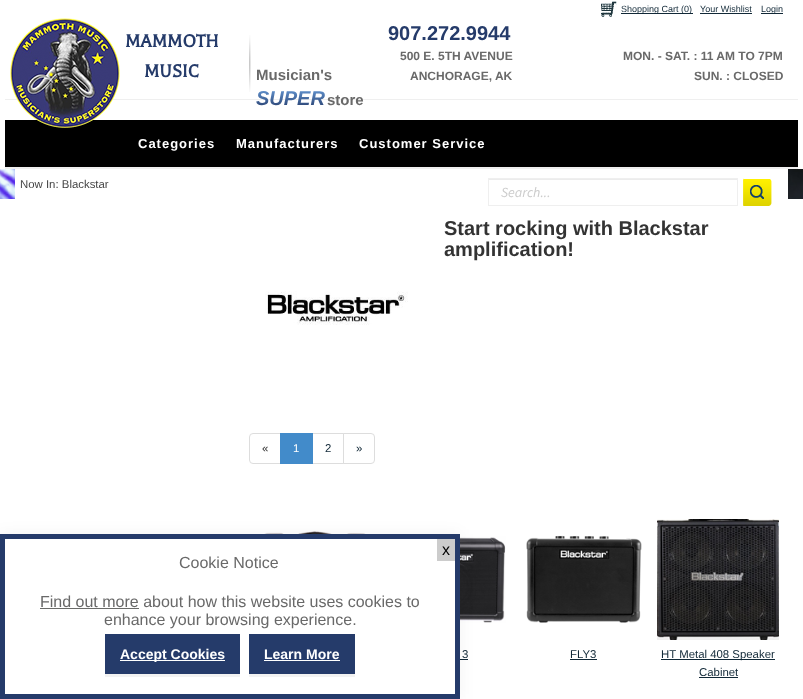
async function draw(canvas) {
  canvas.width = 803
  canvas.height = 699
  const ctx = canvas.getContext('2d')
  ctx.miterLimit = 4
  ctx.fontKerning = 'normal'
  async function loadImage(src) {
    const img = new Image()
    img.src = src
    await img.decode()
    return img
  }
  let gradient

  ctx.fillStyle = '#fff'
  ctx.fillRect(0, 0, 803, 699)
  ctx.drawImage(await loadImage('image0.png'), 0, 169, 803, 30)
  ctx.drawImage(await loadImage('image1.png'), 601, 1, 16, 16)
  ctx.fillStyle = '#112837'
  ctx.fillRect(621, 13, 72, 1)
  ctx.font = '9px Liberation Sans'
  ctx.fillText('Shopping Cart (0)', 621, 12)
  ctx.fillText('Your Wishlist', 700, 12)
  ctx.fillRect(700, 13, 52, 1)
  ctx.fillRect(761, 13, 22, 1)
  ctx.fillText('Login', 761, 12)
  ctx.fillStyle = '#efefef'
  ctx.fillRect(5, 99, 793, 1)
  ctx.fillStyle = '#000'
  ctx.fillRect(5, 120, 793, 47)
  ctx.drawImage(await loadImage('image2.png'), 10, 18, 110, 110)
  ctx.font = 'bold 20px Balthazar'
  ctx.fillStyle = '#253b6a'
  ctx.fillText('MAMMOTH', 125, 47)
  ctx.fillText('MUSIC', 144, 77)
  ctx.drawImage(await loadImage('image3.png'), 249, 35, 2, 57)
  ctx.font = 'bold 20px Liberation Sans'
  ctx.fillText('907.272.9944', 388, 40)
  ctx.font = 'bold 12px Liberation Sans'
  ctx.fillStyle = '#696969'
  ctx.fillText('500 E. 5TH AVENUE', 400, 60)
  ctx.fillText('ANCHORAGE, AK', 410, 80)
  ctx.fillText('MON. - SAT. : 11 AM TO 7PM', 623, 60)
  ctx.font = 'bold 15px Liberation Sans'
  ctx.fillText('Musician\'s', 256, 80)
  ctx.font = 'italic bold 20px Liberation Sans'
  gradient = ctx.createLinearGradient(291, 87, 291, 109)
  gradient.addColorStop(0, '#699edc')
  gradient.addColorStop(1, '#253b6a')
  ctx.fillStyle = gradient
  ctx.fillText('SUPER', 256, 105)
  ctx.font = 'bold 15px Liberation Sans'
  ctx.fillStyle = '#696969'
  ctx.fillText('store', 327, 105)
  ctx.font = 'bold 12px Liberation Sans'
  ctx.fillText('SUN. : CLOSED', 694, 80)
  ctx.fillStyle = '#fff'
  ctx.fillRect(15, 169, 773, 30)
  ctx.font = '11.4px Liberation Sans'
  ctx.fillStyle = '#444'
  ctx.fillText('Now In: Blackstar', 20, 188)
  ctx.fillStyle = '#efefef'
  ctx.fillRect(5, 168, 793, 1)
  ctx.fillStyle = '#f0efef'
  ctx.fillRect(5, 167, 793, 1)
  ctx.letterSpacing = '1px'
  ctx.font = 'bold 13px Liberation Sans'
  ctx.fillStyle = '#fff'
  ctx.fillText('Categories', 138, 148)
  ctx.fillText('Manufacturers', 236, 148)
  ctx.fillText('Customer Service', 359, 148)
  ctx.fillStyle = '#ececec'
  ctx.fillRect(489, 179, 248, 1)
  ctx.strokeStyle = '#efefef'
  ctx.strokeRect(488.5, 178.5, 249, 27)
  ctx.letterSpacing = '0px'
  ctx.font = 'italic 14px Source Sans Pro'
  ctx.fillStyle = '#ccc'
  ctx.fillText('Search...', 501, 197)
  ctx.drawImage(await loadImage('image4.png'), 743, 178, 29, 28)
  ctx.fillStyle = '#fff'
  ctx.beginPath()
  ctx.moveTo(744, 179)
  ctx.lineTo(771, 179)
  ctx.bezierCurveTo(772, 179, 773, 180, 773, 181)
  ctx.bezierCurveTo(773, 177, 770, 178, 766.5, 178)
  ctx.lineTo(748.5, 178)
  ctx.bezierCurveTo(745, 178, 742, 177, 742, 181)
  ctx.bezierCurveTo(742, 180, 743, 179, 744, 179)
  ctx.closePath()
  ctx.fill()
  ctx.font = 'bold 20px Liberation Sans'
  ctx.fillStyle = '#333'
  ctx.fillText('Start rocking with Blackstar', 444, 235)
  ctx.fillText('amplification!', 444, 256)
  ctx.drawImage(await loadImage('image5.png'), 265, 291, 143, 34)
  ctx.beginPath()
  ctx.roundRect(249.5, 433.5, 31, 30, [3.5, 0, 0, 3.5])
  ctx.strokeStyle = '#ddd'
  ctx.stroke()
  ctx.font = '11.4px Liberation Sans'
  ctx.fillText('«', 262, 452)
  ctx.strokeRect(312.5, 433.5, 31, 30)
  ctx.fillStyle = '#428bca'
  ctx.fillRect(280, 433, 33, 31)
  ctx.fillStyle = '#fff'
  ctx.fillText('1', 293, 452)
  ctx.fillStyle = '#112837'
  ctx.fillText('2', 325, 452)
  ctx.fillStyle = '#fff'
  ctx.beginPath()
  ctx.roundRect(343.5, 433.5, 31, 30, [0, 3.5, 3.5, 0])
  ctx.fill()
  ctx.stroke()
  ctx.fillStyle = '#112837'
  ctx.fillText('»', 356, 452)
  ctx.drawImage(await loadImage('image6.png'), 254, 531, 120, 3)
  ctx.drawImage(await loadImage('image7.png'), 460, 536, 46, 87)
  ctx.fillText('3', 462, 658)
  ctx.fillRect(460, 659, 8, 1)
  ctx.drawImage(await loadImage('image8.png'), 526, 535, 116, 88)
  ctx.fillText('FLY3', 570, 658)
  ctx.fillRect(570, 659, 27, 1)
  ctx.drawImage(await loadImage('image9.png'), 657, 519, 122, 121)
  ctx.fillRect(661, 659, 114, 1)
  ctx.fillText('HT Metal 408 Speaker', 661, 658)
  ctx.fillText('Cabinet', 699, 676)
  ctx.fillRect(699, 677, 39, 1)
  ctx.fillStyle = '#0000000d'
  ctx.filter = 'blur(7.5px)'
  ctx.beginPath()
  ctx.rect(0, 534, 460, 165)
  ctx.fill()
  ctx.filter = 'none'
  ctx.fillStyle = '#fff'
  ctx.beginPath()
  ctx.rect(2.5, 536.5, 455, 160)
  ctx.fill()
  ctx.strokeStyle = '#253b6a'
  ctx.lineWidth = 5
  ctx.stroke()
  ctx.fillStyle = '#ccc'
  ctx.fillRect(437, 539, 18, 22)
  ctx.font = '16px Liberation Sans'
  ctx.fillStyle = '#000'
  ctx.fillText('x', 442, 555)
  ctx.fillStyle = '#696969'
  ctx.fillText('Cookie Notice', 179, 568)
  ctx.fillText('Find out more about how this website uses cookies to', 40, 607)
  ctx.fillStyle = '#6a6b69'
  ctx.fillRect(40, 608, 99, 1)
  ctx.fillStyle = '#696969'
  ctx.fillText('enhance your browsing experience.', 104, 625)
  ctx.fillStyle = '#253b6a'
  ctx.fillRect(105, 634, 135, 40)
  ctx.fillStyle = '#fff'
  ctx.fillRect(120, 660, 105, 1)
  ctx.font = 'bold 14px Liberation Sans'
  ctx.fillText('Accept Cookies', 120, 659)
  ctx.fillStyle = '#f2f2f2'
  ctx.fillRect(105, 674, 135, 3)
  ctx.fillStyle = '#253b6a'
  ctx.fillRect(249, 634, 106, 40)
  ctx.fillStyle = '#fff'
  ctx.fillText('Learn More', 264, 659)
  ctx.fillStyle = '#f2f2f2'
  ctx.fillRect(249, 674, 106, 3)
  ctx.fillStyle = '#fff'
  ctx.fillRect(264, 660, 76, 1)
}

draw(document.querySelector('canvas'))
